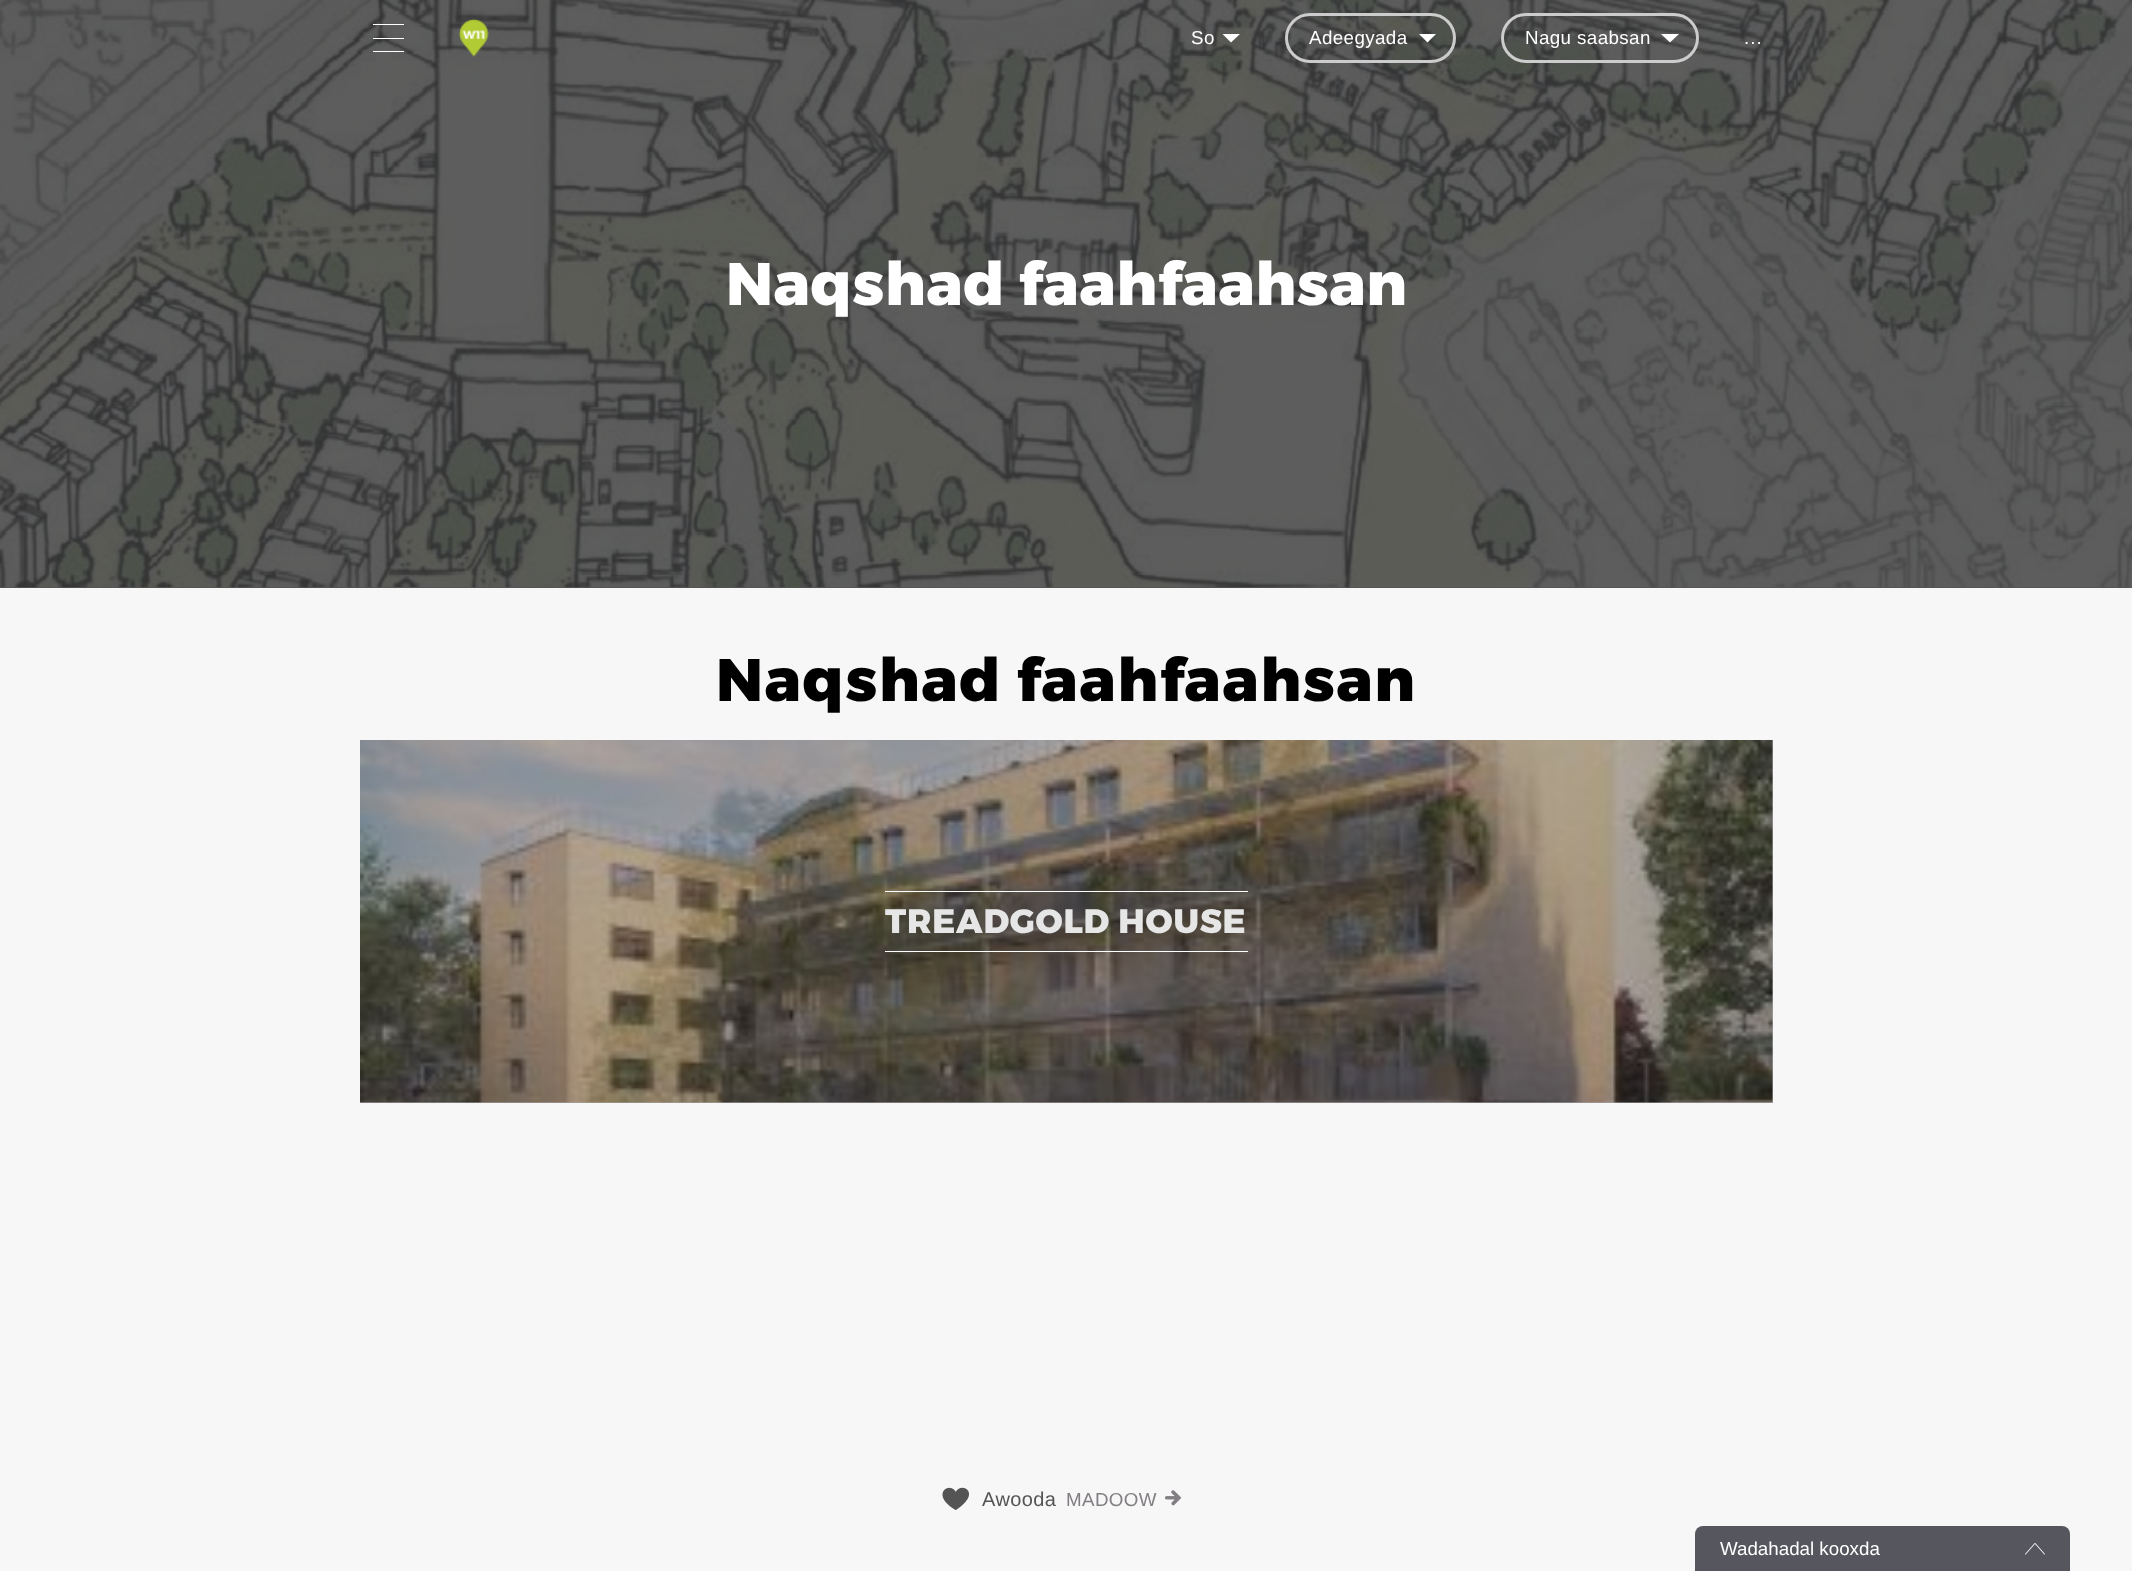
async function draw(canvas) {
  canvas.width = 2132
  canvas.height = 1571
  const ctx = canvas.getContext('2d')
  ctx.miterLimit = 4
  ctx.fontKerning = 'normal'
  async function loadImage(src) {
    const img = new Image()
    img.src = src
    await img.decode()
    return img
  }

  ctx.fillStyle = '#f7f7f7'
  ctx.fillRect(0, 0, 2132, 1571)
  ctx.fillStyle = '#adabad'
  ctx.fillRect(360, 740, 1413, 363)
  ctx.fillStyle = '#555'
  ctx.fillRect(0, 587, 2132, 1)
  ctx.drawImage(await loadImage('image1.png'), 0, 0, 2132, 588)
  ctx.fillStyle = '#fff'
  ctx.fillRect(373, 38, 31, 1)
  ctx.fillRect(373, 24, 31, 1)
  ctx.fillRect(373, 51, 31, 1)
  ctx.drawImage(await loadImage('image0.png'), 458, 18, 31, 39)
  ctx.letterSpacing = '0.4px'
  ctx.font = '18.75px Liberation Sans'
  ctx.fillText('So', 1191, 44)
  ctx.beginPath()
  ctx.moveTo(1222.5, 34)
  ctx.lineTo(1240, 34)
  ctx.lineTo(1231, 42.5)
  ctx.closePath()
  ctx.fill()
  ctx.beginPath()
  ctx.roundRect(1286.5, 14.5, 168, 47, 23.5)
  ctx.strokeStyle = '#ccc'
  ctx.lineWidth = 3
  ctx.stroke()
  ctx.fillText('Adeegyada', 1309, 44)
  ctx.beginPath()
  ctx.moveTo(1419, 34)
  ctx.lineTo(1436, 34)
  ctx.lineTo(1427.5, 42.5)
  ctx.closePath()
  ctx.fill()
  ctx.beginPath()
  ctx.roundRect(1502.5, 14.5, 195, 47, 23.5)
  ctx.stroke()
  ctx.fillText('Nagu saabsan', 1525, 44)
  ctx.beginPath()
  ctx.moveTo(1661, 34)
  ctx.lineTo(1679, 34)
  ctx.lineTo(1670, 42.5)
  ctx.closePath()
  ctx.fill()
  ctx.letterSpacing = '1px'
  ctx.fillText('...', 1744, 44)
  ctx.letterSpacing = '0.5px'
  ctx.font = '800 60px Montserrat'
  ctx.fillText('Naqshad faahfaahsan', 726, 305)
  ctx.letterSpacing = '1.5px'
  ctx.fillStyle = '#000'
  ctx.fillText('Naqshad faahfaahsan', 716, 701)
  ctx.drawImage(await loadImage('image2.png'), 360, 740, 1413, 363)
  ctx.fillStyle = '#fff'
  ctx.fillRect(885, 891, 363, 1)
  ctx.letterSpacing = '0.8px'
  ctx.font = '800 33.75px Montserrat'
  ctx.fillStyle = '#e6e6e6'
  ctx.fillText('TREADGOLD HOUSE', 885, 933)
  ctx.fillStyle = '#fff'
  ctx.fillRect(885, 951, 363, 1)
  ctx.drawImage(await loadImage('image3.png'), 942, 1487, 27, 23)
  ctx.letterSpacing = '0.4px'
  ctx.font = '20px Liberation Sans'
  ctx.fillStyle = '#545454'
  ctx.fillText('Awooda', 982, 1506)
  ctx.font = '18.75px Liberation Sans'
  ctx.fillStyle = '#827e83'
  ctx.fillText('MADOOW', 1066, 1506)
  ctx.drawImage(await loadImage('image4.png'), 1165, 1490, 17, 16)
  ctx.fillStyle = '#56565e'
  ctx.beginPath()
  ctx.roundRect(1695, 1526, 375, 45, [8, 8, 0, 0])
  ctx.fill()
  ctx.letterSpacing = '0px'
  ctx.fillStyle = '#fff'
  ctx.fillText('Wadahadal kooxda', 1720, 1555)
  ctx.drawImage(await loadImage('image5.png'), 2025, 1543, 20, 12)
}

draw(document.querySelector('canvas'))
